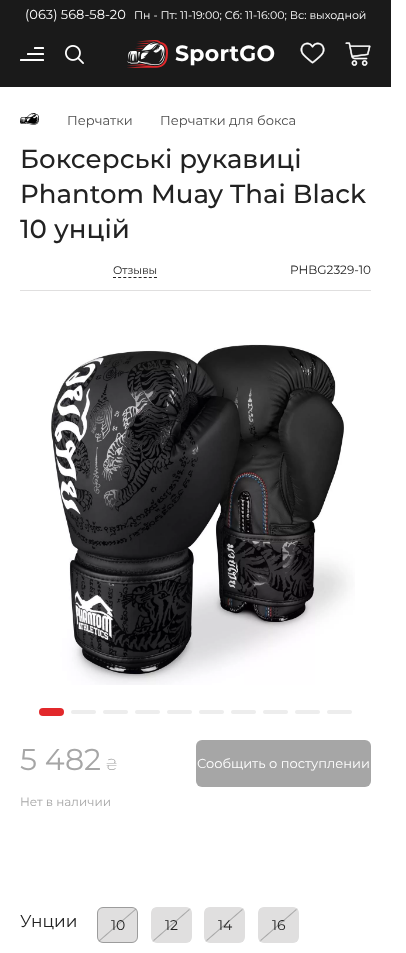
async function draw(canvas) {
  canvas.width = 406
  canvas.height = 953
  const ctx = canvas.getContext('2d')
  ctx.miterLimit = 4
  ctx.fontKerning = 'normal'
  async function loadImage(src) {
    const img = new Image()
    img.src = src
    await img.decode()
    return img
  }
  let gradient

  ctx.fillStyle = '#fff'
  ctx.fillRect(0, 0, 406, 953)
  ctx.fillStyle = '#1a1a1a'
  ctx.fillRect(0, 0, 391, 87)
  ctx.font = '13px Montserrat'
  ctx.fillStyle = '#fff'
  ctx.fillText('(063) 568-58-20', 25, 19)
  ctx.font = '11px Montserrat'
  ctx.fillText('Пн - Пт: 11-19:00; Cб: 11-16:00; Вс: выходной', 134, 19)
  ctx.beginPath()
  ctx.roundRect(34, 47, 10, 2, 0.5)
  ctx.fill()
  ctx.beginPath()
  ctx.roundRect(27, 53, 17, 2, 0.5)
  ctx.fill()
  ctx.beginPath()
  ctx.roundRect(20, 59, 24, 2, 0.5)
  ctx.fill()
  ctx.drawImage(await loadImage('image0.png'), 65, 45, 19, 19)
  ctx.drawImage(await loadImage('image1.png'), 127, 40, 41, 28)
  ctx.letterSpacing = '0.25px'
  ctx.font = 'bold 22px Montserrat'
  ctx.fillText('SportGO', 175, 61)
  ctx.drawImage(await loadImage('image2.png'), 300, 42, 25, 22)
  ctx.drawImage(await loadImage('image3.png'), 345, 42, 26, 24)
  ctx.drawImage(await loadImage('image4.png'), 20, 113, 19, 12)
  ctx.letterSpacing = '0px'
  ctx.font = '13px Montserrat'
  ctx.fillStyle = '#4d4d4d'
  ctx.fillText('Перчатки', 67, 125)
  ctx.fillText('Перчатки для бокса', 160, 125)
  ctx.fillStyle = '#e0dfdf'
  ctx.fillRect(20, 290, 351, 1)
  ctx.font = '500 26px Montserrat'
  ctx.fillStyle = '#222'
  ctx.fillText('Боксерські рукавиці', 20, 168)
  ctx.fillText('Phantom Muay Thai Black', 20, 203)
  ctx.fillText('10 унцій', 20, 238)
  ctx.beginPath()
  ctx.moveTo(113, 277.5)
  ctx.lineTo(157, 277.5)
  ctx.strokeStyle = '#222'
  ctx.setLineDash([3, 2.12])
  ctx.stroke()
  ctx.font = '11px Montserrat'
  ctx.fillText('Отзывы', 113, 274)
  ctx.font = '12px Montserrat'
  ctx.fillText('PHBG2329-10', 290, 274)
  ctx.drawImage(await loadImage('image5.png'), 51, 344, 304, 341)
  ctx.fillStyle = '#e2282b'
  ctx.beginPath()
  ctx.roundRect(39, 708, 25, 8, 4)
  ctx.fill()
  ctx.fillStyle = '#ededed'
  ctx.beginPath()
  ctx.roundRect(71, 710, 25, 4, 2)
  ctx.fill()
  ctx.beginPath()
  ctx.roundRect(103, 710, 25, 4, 2)
  ctx.fill()
  ctx.beginPath()
  ctx.roundRect(135, 710, 25, 4, 2)
  ctx.fill()
  ctx.beginPath()
  ctx.roundRect(167, 710, 25, 4, 2)
  ctx.fill()
  ctx.beginPath()
  ctx.roundRect(199, 710, 25, 4, 2)
  ctx.fill()
  ctx.beginPath()
  ctx.roundRect(231, 710, 25, 4, 2)
  ctx.fill()
  ctx.beginPath()
  ctx.roundRect(263, 710, 25, 4, 2)
  ctx.fill()
  ctx.beginPath()
  ctx.roundRect(295, 710, 25, 4, 2)
  ctx.fill()
  ctx.beginPath()
  ctx.roundRect(327, 710, 25, 4, 2)
  ctx.fill()
  ctx.font = '30px Montserrat'
  ctx.fillStyle = '#a6a6a6'
  ctx.fillText('5 482', 20, 770)
  ctx.font = '300 16px Montserrat'
  ctx.fillText('₴', 105, 770)
  ctx.font = '12px Montserrat'
  ctx.fillText('Нет в наличии', 20, 806)
  ctx.beginPath()
  ctx.roundRect(196, 740, 175, 47, 6)
  ctx.fill()
  ctx.font = '13px Montserrat'
  ctx.fillStyle = '#fff'
  ctx.fillText('Сообщить о поступлении', 197, 768)
  ctx.font = '17px Montserrat'
  ctx.fillStyle = '#222'
  ctx.fillText('Унции', 20, 927)
  ctx.save()
  ctx.beginPath()
  ctx.roundRect(97, 907, 41, 36, 6)
  ctx.clip()
  gradient = ctx.createLinearGradient(134, 944, 101, 906)
  gradient.addColorStop(0, '#e0dfdf')
  gradient.addColorStop(0.48, '#e0dfdf')
  gradient.addColorStop(0.5, '#a6a6a6')
  gradient.addColorStop(0.52, '#e0dfdf')
  gradient.addColorStop(1, '#e0dfdf')
  ctx.fillStyle = gradient
  ctx.fillRect(98, 908, 39, 34)
  ctx.restore()
  ctx.beginPath()
  ctx.roundRect(97.5, 907.5, 40, 35, 5.5)
  ctx.strokeStyle = '#9c9c9c'
  ctx.setLineDash([])
  ctx.stroke()
  ctx.font = '14px Montserrat'
  ctx.fillText('10', 111, 930)
  ctx.save()
  ctx.beginPath()
  ctx.roundRect(151, 907, 41, 36, 6)
  ctx.clip()
  gradient = ctx.createLinearGradient(188, 944, 155, 906)
  gradient.addColorStop(0, '#e0dfdf')
  gradient.addColorStop(0.48, '#e0dfdf')
  gradient.addColorStop(0.5, '#a6a6a6')
  gradient.addColorStop(0.52, '#e0dfdf')
  gradient.addColorStop(1, '#e0dfdf')
  ctx.fillStyle = gradient
  ctx.fillRect(152, 908, 39, 34)
  ctx.restore()
  ctx.beginPath()
  ctx.roundRect(151.5, 907.5, 40, 35, 5.5)
  ctx.strokeStyle = '#e0dfdf'
  ctx.stroke()
  ctx.fillText('12', 165, 930)
  ctx.save()
  ctx.beginPath()
  ctx.roundRect(204, 907, 41, 36, 6)
  ctx.clip()
  gradient = ctx.createLinearGradient(241, 944, 208, 906)
  gradient.addColorStop(0, '#e0dfdf')
  gradient.addColorStop(0.48, '#e0dfdf')
  gradient.addColorStop(0.5, '#a6a6a6')
  gradient.addColorStop(0.52, '#e0dfdf')
  gradient.addColorStop(1, '#e0dfdf')
  ctx.fillStyle = gradient
  ctx.fillRect(205, 908, 39, 34)
  ctx.restore()
  ctx.beginPath()
  ctx.roundRect(204.5, 907.5, 40, 35, 5.5)
  ctx.stroke()
  ctx.fillText('14', 218, 930)
  ctx.save()
  ctx.beginPath()
  ctx.roundRect(258, 907, 41, 36, 6)
  ctx.clip()
  gradient = ctx.createLinearGradient(295, 944, 262, 906)
  gradient.addColorStop(0, '#e0dfdf')
  gradient.addColorStop(0.48, '#e0dfdf')
  gradient.addColorStop(0.5, '#a6a6a6')
  gradient.addColorStop(0.52, '#e0dfdf')
  gradient.addColorStop(1, '#e0dfdf')
  ctx.fillStyle = gradient
  ctx.fillRect(259, 908, 39, 34)
  ctx.restore()
  ctx.beginPath()
  ctx.roundRect(258.5, 907.5, 40, 35, 5.5)
  ctx.stroke()
  ctx.fillText('16', 272, 930)
}

draw(document.querySelector('canvas'))
